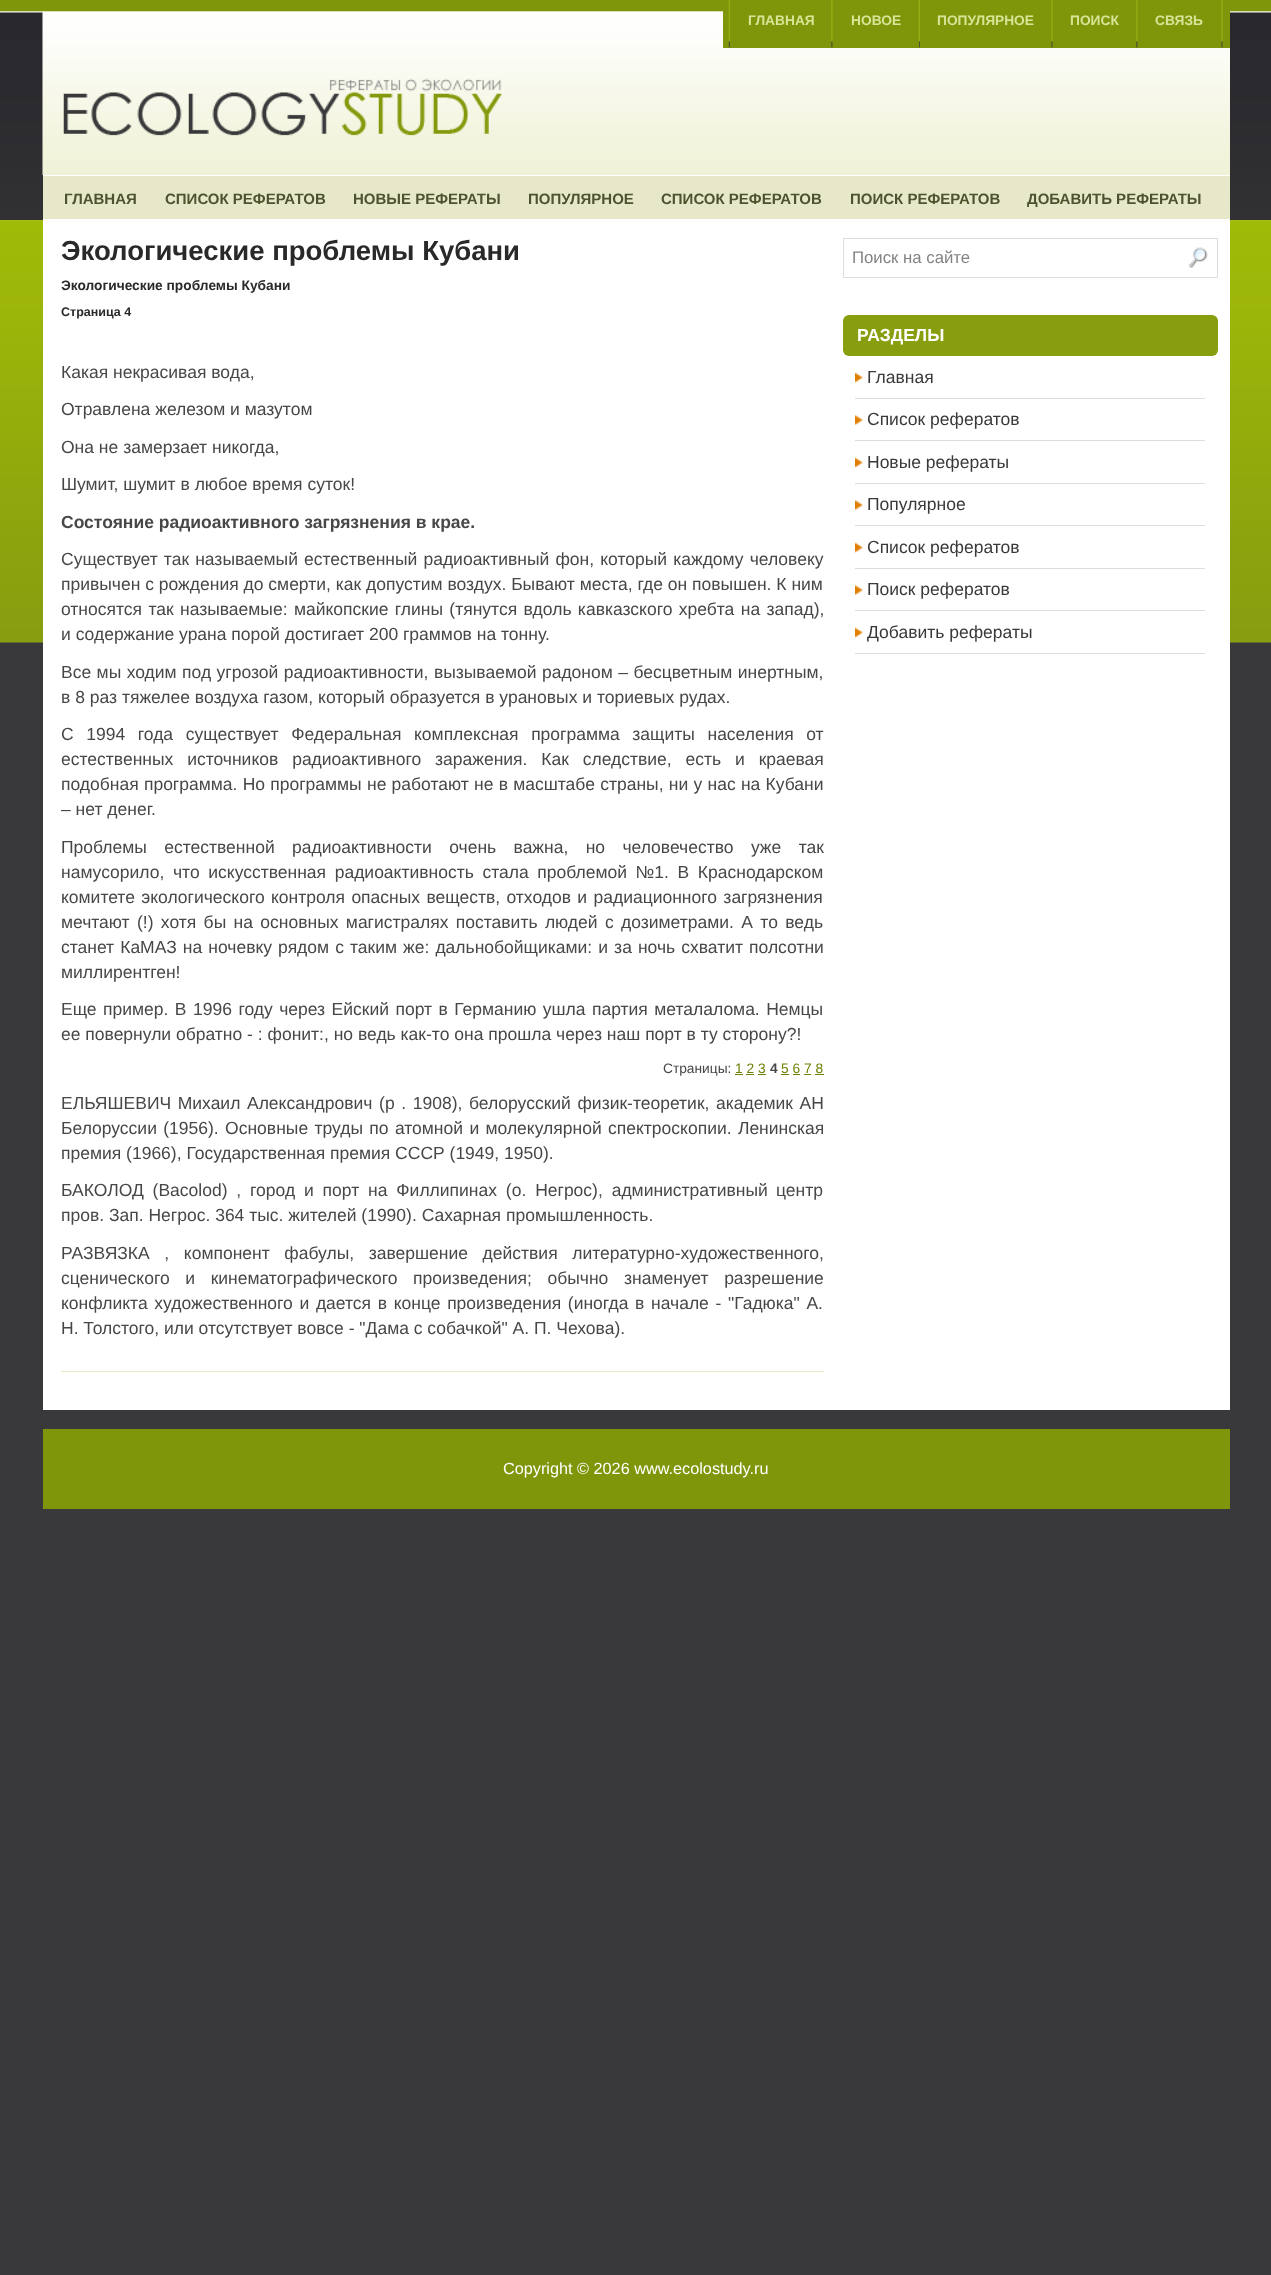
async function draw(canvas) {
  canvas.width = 1271
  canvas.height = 2275
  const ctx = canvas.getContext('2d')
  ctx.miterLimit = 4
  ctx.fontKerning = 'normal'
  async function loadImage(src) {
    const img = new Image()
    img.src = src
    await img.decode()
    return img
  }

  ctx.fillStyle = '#39393b'
  ctx.fillRect(0, 0, 1271, 2275)
  ctx.drawImage(await loadImage('image0.png'), 0, 0, 1271, 220)
  ctx.drawImage(await loadImage('image1.png'), 0, 220, 1271, 423)
  ctx.drawImage(await loadImage('image2.png'), 42, 12, 1188, 163)
  ctx.fillStyle = '#80960a'
  ctx.fillRect(723, 11, 507, 37)
  ctx.drawImage(await loadImage('image3.png'), 728, 0, 2, 48)
  ctx.drawImage(await loadImage('image4.png'), 831, 0, 2, 48)
  ctx.font = 'bold 13.75px Liberation Sans'
  ctx.fillStyle = '#d8e496'
  ctx.fillText('ГЛАВНАЯ', 748, 25)
  ctx.drawImage(await loadImage('image3.png'), 918, 0, 2, 48)
  ctx.fillStyle = '#80960a'
  ctx.fillRect(918, 41, 1, 7)
  ctx.fillStyle = '#d8e496'
  ctx.fillText('НОВОЕ', 851, 25)
  ctx.drawImage(await loadImage('image4.png'), 1051, 0, 2, 48)
  ctx.fillText('ПОПУЛЯРНОЕ', 937, 25)
  ctx.drawImage(await loadImage('image4.png'), 1136, 0, 2, 48)
  ctx.fillText('ПОИСК', 1070, 25)
  ctx.drawImage(await loadImage('image4.png'), 1221, 0, 2, 48)
  ctx.fillText('СВЯЗЬ', 1155, 25)
  ctx.drawImage(await loadImage('image5.png'), 63, 78, 440, 58)
  ctx.fillStyle = '#e6e8c9'
  ctx.fillRect(43, 176, 1187, 43)
  ctx.fillStyle = '#fff'
  ctx.fillRect(43, 175, 1187, 1)
  ctx.font = 'bold 15px Liberation Sans'
  ctx.fillStyle = '#4e532f'
  ctx.fillText('ГЛАВНАЯ', 64, 204)
  ctx.fillText('СПИСОК РЕФЕРАТОВ', 165, 204)
  ctx.fillText('НОВЫЕ РЕФЕРАТЫ', 353, 204)
  ctx.fillText('ПОПУЛЯРНОЕ', 528, 204)
  ctx.fillText('СПИСОК РЕФЕРАТОВ', 661, 204)
  ctx.fillText('ПОИСК РЕФЕРАТОВ', 850, 204)
  ctx.fillText('ДОБАВИТЬ РЕФЕРАТЫ', 1027, 204)
  ctx.fillStyle = '#fff'
  ctx.fillRect(43, 219, 1187, 1191)
  ctx.fillStyle = '#e6e8c9'
  ctx.fillRect(61, 1371, 763, 1)
  ctx.font = 'bold 27.5px Liberation Sans'
  ctx.fillStyle = '#292929'
  ctx.fillText('Экологические проблемы Кубани', 61, 260)
  ctx.font = 'bold 13.75px Liberation Sans'
  ctx.fillText('Экологические проблемы Кубани', 61, 290)
  ctx.font = 'bold 12.5px Liberation Sans'
  ctx.fillText('Страница 4', 61, 316)
  ctx.font = '17.5px Liberation Sans'
  ctx.fillStyle = '#474747'
  ctx.fillText('Какая некрасивая вода,', 61, 378)
  ctx.fillText('Отравлена железом и мазутом', 61, 415)
  ctx.fillText('Она не замерзает никогда,', 61, 453)
  ctx.fillText('Шумит, шумит в любое время суток!', 61, 490)
  ctx.font = 'bold 17.5px Liberation Sans'
  ctx.fillText('Состояние радиоактивного загрязнения в крае.', 61, 528)
  ctx.wordSpacing = '1.25px'
  ctx.font = '17.5px Liberation Sans'
  ctx.fillText('Существует так называемый естественный радиоактивный фон, который каждому человеку', 61, 565)
  ctx.wordSpacing = '0px'
  ctx.fillText('привычен с рождения до смерти, как допустим воздух. Бывают места, где он повышен. К ним', 61, 590)
  ctx.wordSpacing = '1.5px'
  ctx.fillText('относятся так называемые: майкопские глины (тянутся вдоль кавказского хребта на запад),', 61, 615)
  ctx.wordSpacing = '0px'
  ctx.fillText('и содержание урана порой достигает 200 граммов на тонну.', 61, 640)
  ctx.wordSpacing = '0.6px'
  ctx.fillText('Все мы ходим под угрозой радиоактивности, вызываемой радоном – бесцветным инертным,', 61, 678)
  ctx.wordSpacing = '0px'
  ctx.fillText('в 8 раз тяжелее воздуха газом, который образуется в урановых и ториевых рудах.', 61, 703)
  ctx.wordSpacing = '7.75px'
  ctx.fillText('С 1994 года существует Федеральная комплексная программа защиты населения от', 61, 740)
  ctx.wordSpacing = '9px'
  ctx.fillText('естественных источников радиоактивного заражения. Как следствие, есть и краевая', 61, 765)
  ctx.wordSpacing = '0.4px'
  ctx.fillText('подобная программа. Но программы не работают не в масштабе страны, ни у нас на Кубани', 61, 790)
  ctx.wordSpacing = '0px'
  ctx.fillText('– нет денег.', 61, 815)
  ctx.wordSpacing = '12.5px'
  ctx.fillText('Проблемы естественной радиоактивности очень важна, но человечество уже так', 61, 853)
  ctx.wordSpacing = '3.75px'
  ctx.fillText('намусорило, что искусственная радиоактивность стала проблемой №1. В Краснодарском', 61, 878)
  ctx.wordSpacing = '1.5px'
  ctx.fillText('комитете экологического контроля опасных веществ, отходов и радиационного загрязнения', 61, 903)
  ctx.wordSpacing = '2.5px'
  ctx.fillText('мечтают (!) хотя бы на основных магистралях поставить людей с дозиметрами. А то ведь', 61, 928)
  ctx.wordSpacing = '1.2px'
  ctx.fillText('станет КаМАЗ на ночевку рядом с таким же: дальнобойщиками: и за ночь схватит полсотни', 61, 953)
  ctx.wordSpacing = '0px'
  ctx.fillText('миллирентген!', 61, 978)
  ctx.wordSpacing = '1.6px'
  ctx.fillText('Еще пример. В 1996 году через Ейский порт в Германию ушла партия металалома. Немцы', 61, 1015)
  ctx.wordSpacing = '0px'
  ctx.fillText('ее повернули обратно - : фонит:, но ведь как-то она прошла через наш порт в ту сторону?!', 61, 1040)
  ctx.font = '13.75px Liberation Sans'
  ctx.fillText('Страницы:', 663, 1073)
  ctx.fillStyle = '#6e8005'
  ctx.fillText('1 2 3', 735, 1073)
  ctx.fillRect(735, 1074, 8, 1)
  ctx.font = 'bold 13.75px Liberation Sans'
  ctx.fillStyle = '#474747'
  ctx.fillText('4', 770, 1073)
  ctx.font = '13.75px Liberation Sans'
  ctx.fillStyle = '#6e8005'
  ctx.fillText('5 6 7 8', 781, 1073)
  ctx.fillRect(781, 1074, 8, 1)
  ctx.fillRect(746, 1074, 8, 1)
  ctx.fillRect(758, 1074, 8, 1)
  ctx.fillRect(793, 1074, 7, 1)
  ctx.fillRect(804, 1074, 7, 1)
  ctx.fillRect(815, 1074, 9, 1)
  ctx.wordSpacing = '1.75px'
  ctx.font = '17.5px Liberation Sans'
  ctx.fillStyle = '#474747'
  ctx.fillText('ЕЛЬЯШЕВИЧ Михаил Александрович (р . 1908), белорусский физик-теоретик, академик АН', 61, 1109)
  ctx.wordSpacing = '1.5px'
  ctx.fillText('Белоруссии (1956). Основные труды по атомной и молекулярной спектроскопии. Ленинская', 61, 1134)
  ctx.wordSpacing = '0px'
  ctx.fillText('премия (1966), Государственная премия СССР (1949, 1950).', 61, 1159)
  ctx.wordSpacing = '4px'
  ctx.fillText('БАКОЛОД (Bacolod) , город и порт на Филлипинах (о. Негрос), административный', 61, 1196)
  ctx.wordSpacing = '0px'
  ctx.fillText('центр', 776, 1196)
  ctx.fillText('пров. Зап. Негрос. 364 тыс. жителей (1990). Сахарная промышленность.', 61, 1221)
  ctx.wordSpacing = '9.75px'
  ctx.fillText('РАЗВЯЗКА , компонент фабулы, завершение действия литературно-художественного,', 61, 1259)
  ctx.wordSpacing = '10.75px'
  ctx.fillText('сценического и кинематографического произведения; обычно знаменует разрешение', 61, 1284)
  ctx.wordSpacing = '1.8px'
  ctx.fillText('конфликта художественного и дается в конце произведения (иногда в начале - "Гадюка" А.', 61, 1309)
  ctx.wordSpacing = '0px'
  ctx.fillText('Н. Толстого, или отсутствует вовсе - "Дама с собачкой" А. П. Чехова).', 61, 1334)
  ctx.strokeStyle = '#ddd'
  ctx.strokeRect(843.5, 238.5, 374, 39)
  ctx.font = '16.75px Liberation Sans'
  ctx.fillStyle = '#858282'
  ctx.fillText('Поиск на сайте', 852, 263)
  ctx.drawImage(await loadImage('image6.png'), 1188, 247, 20, 21)
  ctx.fillStyle = '#899e0f'
  ctx.beginPath()
  ctx.roundRect(843, 315, 375, 41, 6)
  ctx.fill()
  ctx.font = 'bold 17.5px Liberation Sans'
  ctx.fillStyle = '#fff'
  ctx.fillText('РАЗДЕЛЫ', 857, 341)
  ctx.drawImage(await loadImage('image7.png'), 855, 372, 8, 11)
  ctx.fillStyle = '#ddd'
  ctx.fillRect(855, 398, 350, 1)
  ctx.font = '17.5px Liberation Sans'
  ctx.fillStyle = '#39393b'
  ctx.fillText('Главная', 867, 383)
  ctx.drawImage(await loadImage('image8.png'), 855, 415, 8, 10)
  ctx.fillStyle = '#ddd'
  ctx.fillRect(855, 440, 350, 1)
  ctx.fillStyle = '#39393b'
  ctx.fillText('Список рефератов', 867, 425)
  ctx.drawImage(await loadImage('image7.png'), 855, 457, 8, 11)
  ctx.fillStyle = '#ddd'
  ctx.fillRect(855, 483, 350, 1)
  ctx.fillStyle = '#39393b'
  ctx.fillText('Новые рефераты', 867, 468)
  ctx.drawImage(await loadImage('image8.png'), 855, 500, 8, 10)
  ctx.fillStyle = '#ddd'
  ctx.fillRect(855, 525, 350, 1)
  ctx.fillStyle = '#39393b'
  ctx.fillText('Популярное', 867, 510)
  ctx.drawImage(await loadImage('image7.png'), 855, 542, 8, 11)
  ctx.fillStyle = '#ddd'
  ctx.fillRect(855, 568, 350, 1)
  ctx.fillStyle = '#39393b'
  ctx.fillText('Список рефератов', 867, 553)
  ctx.drawImage(await loadImage('image9.png'), 855, 585, 8, 10)
  ctx.fillStyle = '#ddd'
  ctx.fillRect(855, 610, 350, 1)
  ctx.fillStyle = '#39393b'
  ctx.fillText('Поиск рефератов', 867, 595)
  ctx.drawImage(await loadImage('image7.png'), 855, 627, 8, 11)
  ctx.fillStyle = '#ddd'
  ctx.fillRect(855, 653, 350, 1)
  ctx.fillStyle = '#39393b'
  ctx.fillText('Добавить рефераты', 867, 638)
  ctx.fillStyle = '#80960a'
  ctx.fillRect(43, 1429, 1187, 80)
  ctx.font = '16.25px Liberation Sans'
  ctx.fillStyle = '#fff'
  ctx.fillText('Copyright © 2026 www.ecolostudy.ru', 503, 1474)
}

draw(document.querySelector('canvas'))
